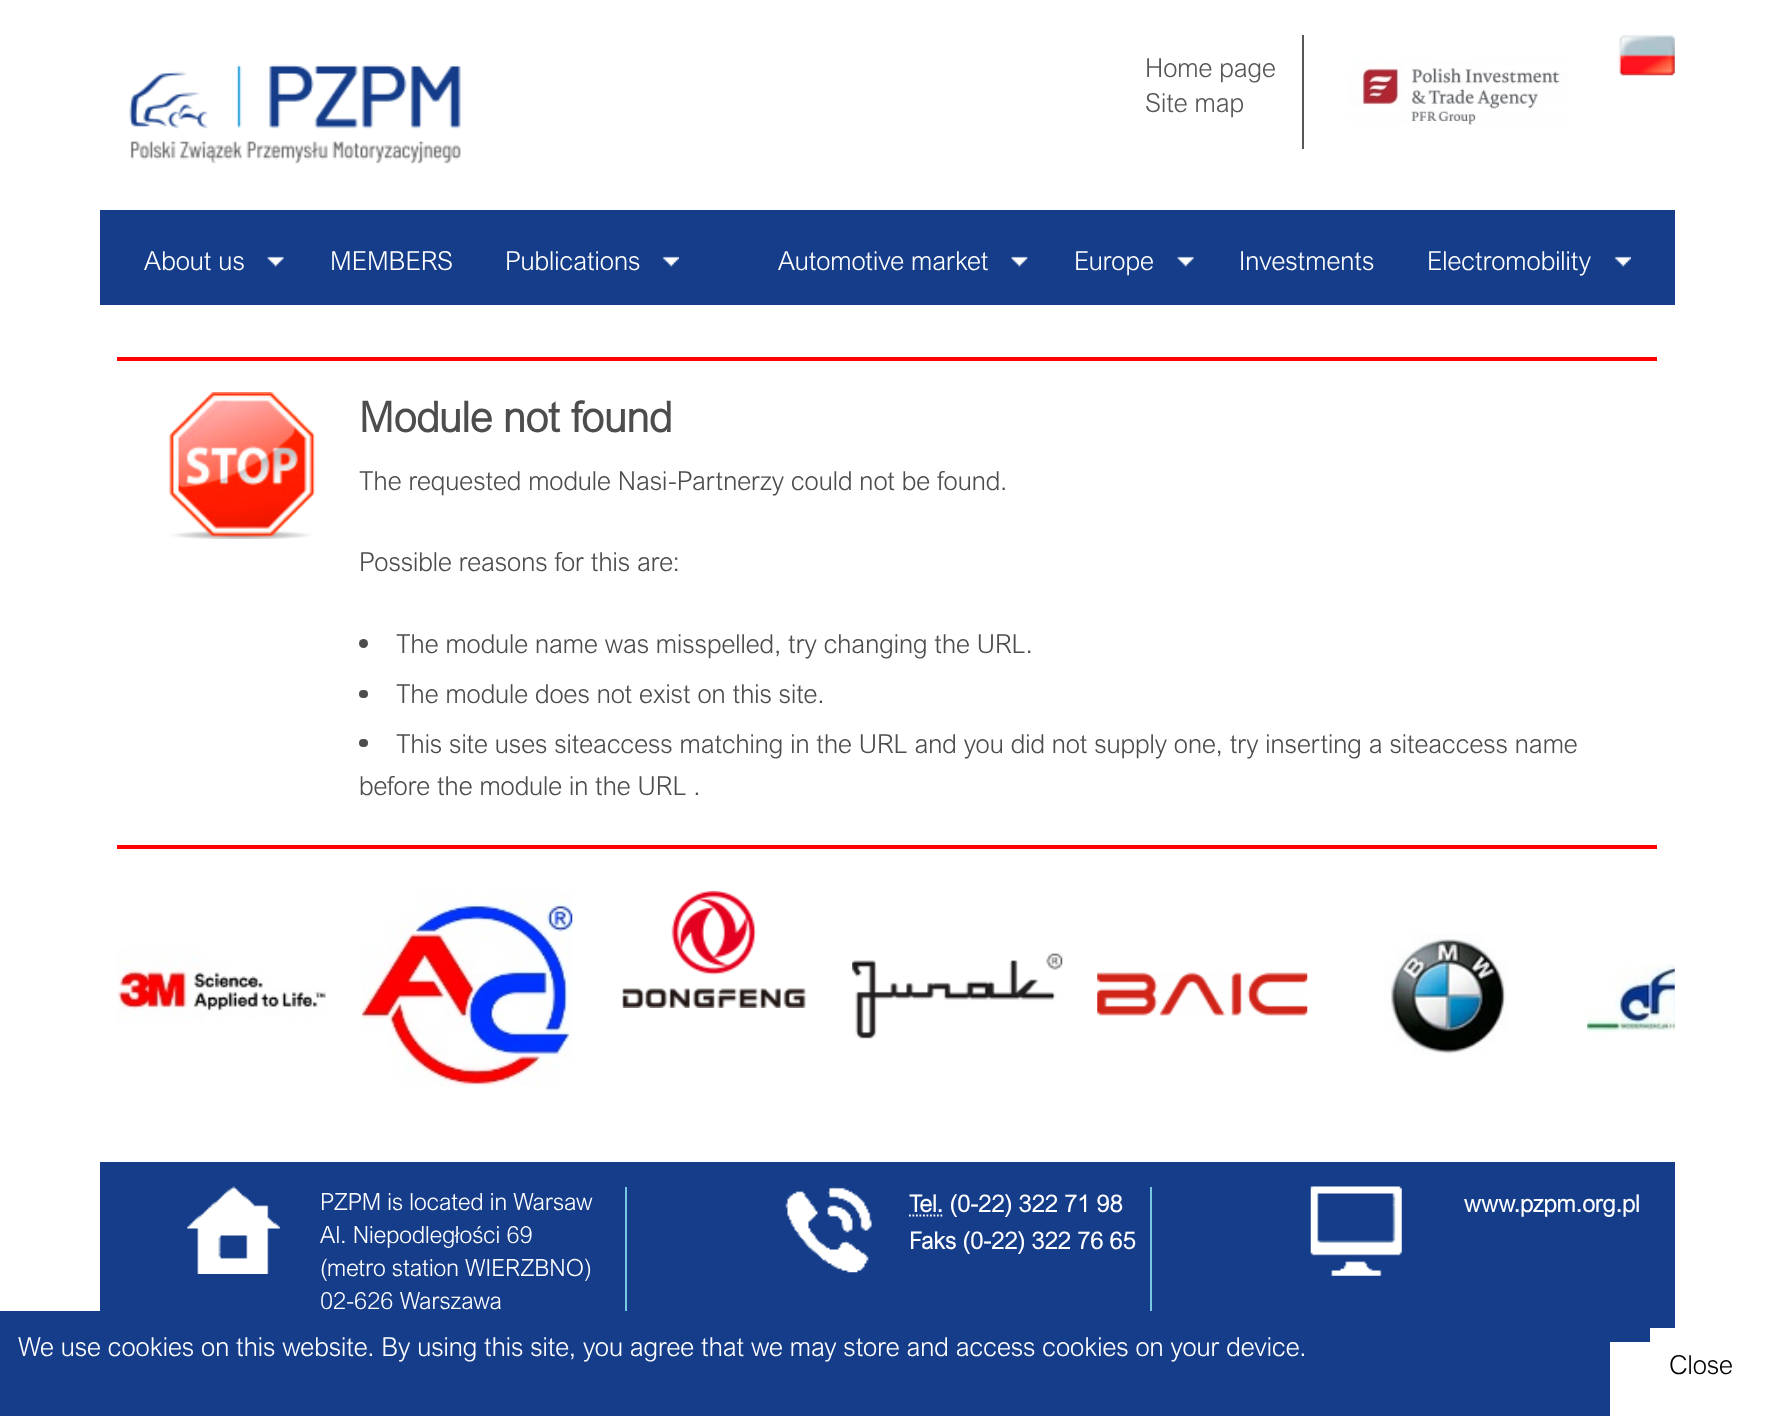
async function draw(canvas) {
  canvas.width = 1773
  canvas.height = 1416
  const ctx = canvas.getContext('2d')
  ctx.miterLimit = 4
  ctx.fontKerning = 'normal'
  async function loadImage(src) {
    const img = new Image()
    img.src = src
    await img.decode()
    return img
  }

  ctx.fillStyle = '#fff'
  ctx.fillRect(0, 0, 1773, 1416)
  ctx.drawImage(await loadImage('image0.png'), 129, 64, 332, 100)
  ctx.fillStyle = '#575756'
  ctx.fillRect(1302, 35, 2, 114)
  ctx.font = '300 26.25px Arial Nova'
  ctx.fillText('Home page', 1145, 77)
  ctx.fillText('Site map', 1145, 112)
  ctx.drawImage(await loadImage('image1.png'), 1349, 58, 218, 67)
  ctx.drawImage(await loadImage('image2.png'), 1618, 35, 57, 41)
  ctx.fillStyle = '#153d8a'
  ctx.fillRect(100, 210, 1575, 95)
  ctx.fillStyle = '#fff'
  ctx.fillText('About us', 144, 270)
  ctx.drawImage(await loadImage('image3.png'), 267, 256, 17, 11)
  ctx.fillText('MEMBERS', 330, 270)
  ctx.fillText('Publications', 505, 270)
  ctx.drawImage(await loadImage('image4.png'), 662, 256, 17, 11)
  ctx.fillText('Automotive market', 778, 270)
  ctx.drawImage(await loadImage('image5.png'), 1011, 256, 17, 11)
  ctx.fillText('Europe', 1074, 270)
  ctx.drawImage(await loadImage('image6.png'), 1177, 256, 17, 11)
  ctx.fillText('Investments', 1239, 270)
  ctx.fillText('Electromobility', 1427, 270)
  ctx.drawImage(await loadImage('image7.png'), 1614, 256, 17, 11)
  ctx.drawImage(await loadImage('image8.png'), 169, 392, 147, 147)
  ctx.fillStyle = '#f00'
  ctx.fillRect(117, 357, 1540, 4)
  ctx.fillRect(117, 845, 1540, 4)
  ctx.font = 'bold 42px Arial Nova'
  ctx.fillStyle = '#4d4d4d'
  ctx.fillText('Module not found', 359, 432)
  ctx.font = '300 26.25px Arial Nova'
  ctx.fillText('The requested module Nasi-Partnerzy could not be found.', 359, 490)
  ctx.fillText('Possible reasons for this are:', 359, 571)
  ctx.beginPath()
  ctx.arc(363.5, 643.5, 4.5, 0, 2 * Math.PI)
  ctx.fill()
  ctx.fillText('The module name was misspelled, try changing the URL.', 396, 653)
  ctx.beginPath()
  ctx.roundRect(359, 690, 9, 8, 4)
  ctx.fill()
  ctx.fillText('The module does not exist on this site.', 396, 703)
  ctx.beginPath()
  ctx.roundRect(359, 739, 9, 8, 4)
  ctx.fill()
  ctx.fillText('This site uses siteaccess matching in the URL and you did not supply one, try inserting a siteaccess name', 396, 753)
  ctx.fillText('before the module in the URL .', 359, 795)
  ctx.drawImage(await loadImage('image9.png'), 117, 947, 209, 77)
  ctx.drawImage(await loadImage('image10.png'), 362, 891, 211, 196)
  ctx.drawImage(await loadImage('image11.png'), 622, 890, 184, 118)
  ctx.drawImage(await loadImage('image12.png'), 852, 953, 211, 86)
  ctx.drawImage(await loadImage('image13.png'), 1097, 972, 211, 44)
  ctx.drawImage(await loadImage('image14.png'), 1384, 933, 124, 122)
  ctx.drawImage(await loadImage('image15.png'), 1587, 964, 88, 69)
  ctx.fillStyle = '#153d8a'
  ctx.fillRect(100, 1162, 1575, 180)
  ctx.drawImage(await loadImage('image16.png'), 187, 1186, 93, 88)
  ctx.font = '300 23.6px Arial Nova'
  ctx.fillStyle = '#fff'
  ctx.fillText('PZPM is located in Warsaw', 320, 1210)
  ctx.fillText('Al. Niepodległości 69', 320, 1243)
  ctx.fillText('(metro station WIERZBNO)', 320, 1276)
  ctx.fillText('02-626 Warszawa', 320, 1309)
  ctx.fillStyle = '#77c9e1'
  ctx.fillRect(625, 1187, 2, 131)
  ctx.drawImage(await loadImage('image17.png'), 785, 1186, 87, 87)
  ctx.beginPath()
  ctx.moveTo(909, 1215.5)
  ctx.lineTo(943, 1215.5)
  ctx.strokeStyle = '#fff'
  ctx.lineWidth = 1.8
  ctx.setLineDash([1.75, 1.75])
  ctx.stroke()
  ctx.font = 'bold 23.6px Arial Nova'
  ctx.fillStyle = '#fff'
  ctx.fillText('Tel. (0-22) 322 71 98', 909, 1212)
  ctx.fillText('Faks (0-22) 322 76 65', 909, 1249)
  ctx.fillStyle = '#77c9e1'
  ctx.fillRect(1150, 1187, 2, 131)
  ctx.drawImage(await loadImage('image18.png'), 1310, 1186, 92, 90)
  ctx.fillStyle = '#fff'
  ctx.fillText('www.pzpm.org.pl', 1464, 1212)
  ctx.fillStyle = '#153d8a'
  ctx.fillRect(0, 1311, 1610, 105)
  ctx.font = '300 26.25px Arial Nova'
  ctx.fillStyle = '#fff'
  ctx.fillText('We use cookies on this website. By using this site, you agree that we may store and access cookies on your device.', 18, 1356)
  ctx.fillRect(1650, 1328, 25, 14)
  ctx.fillStyle = '#000'
  ctx.fillText('Close', 1669, 1374)
}

draw(document.querySelector('canvas'))
